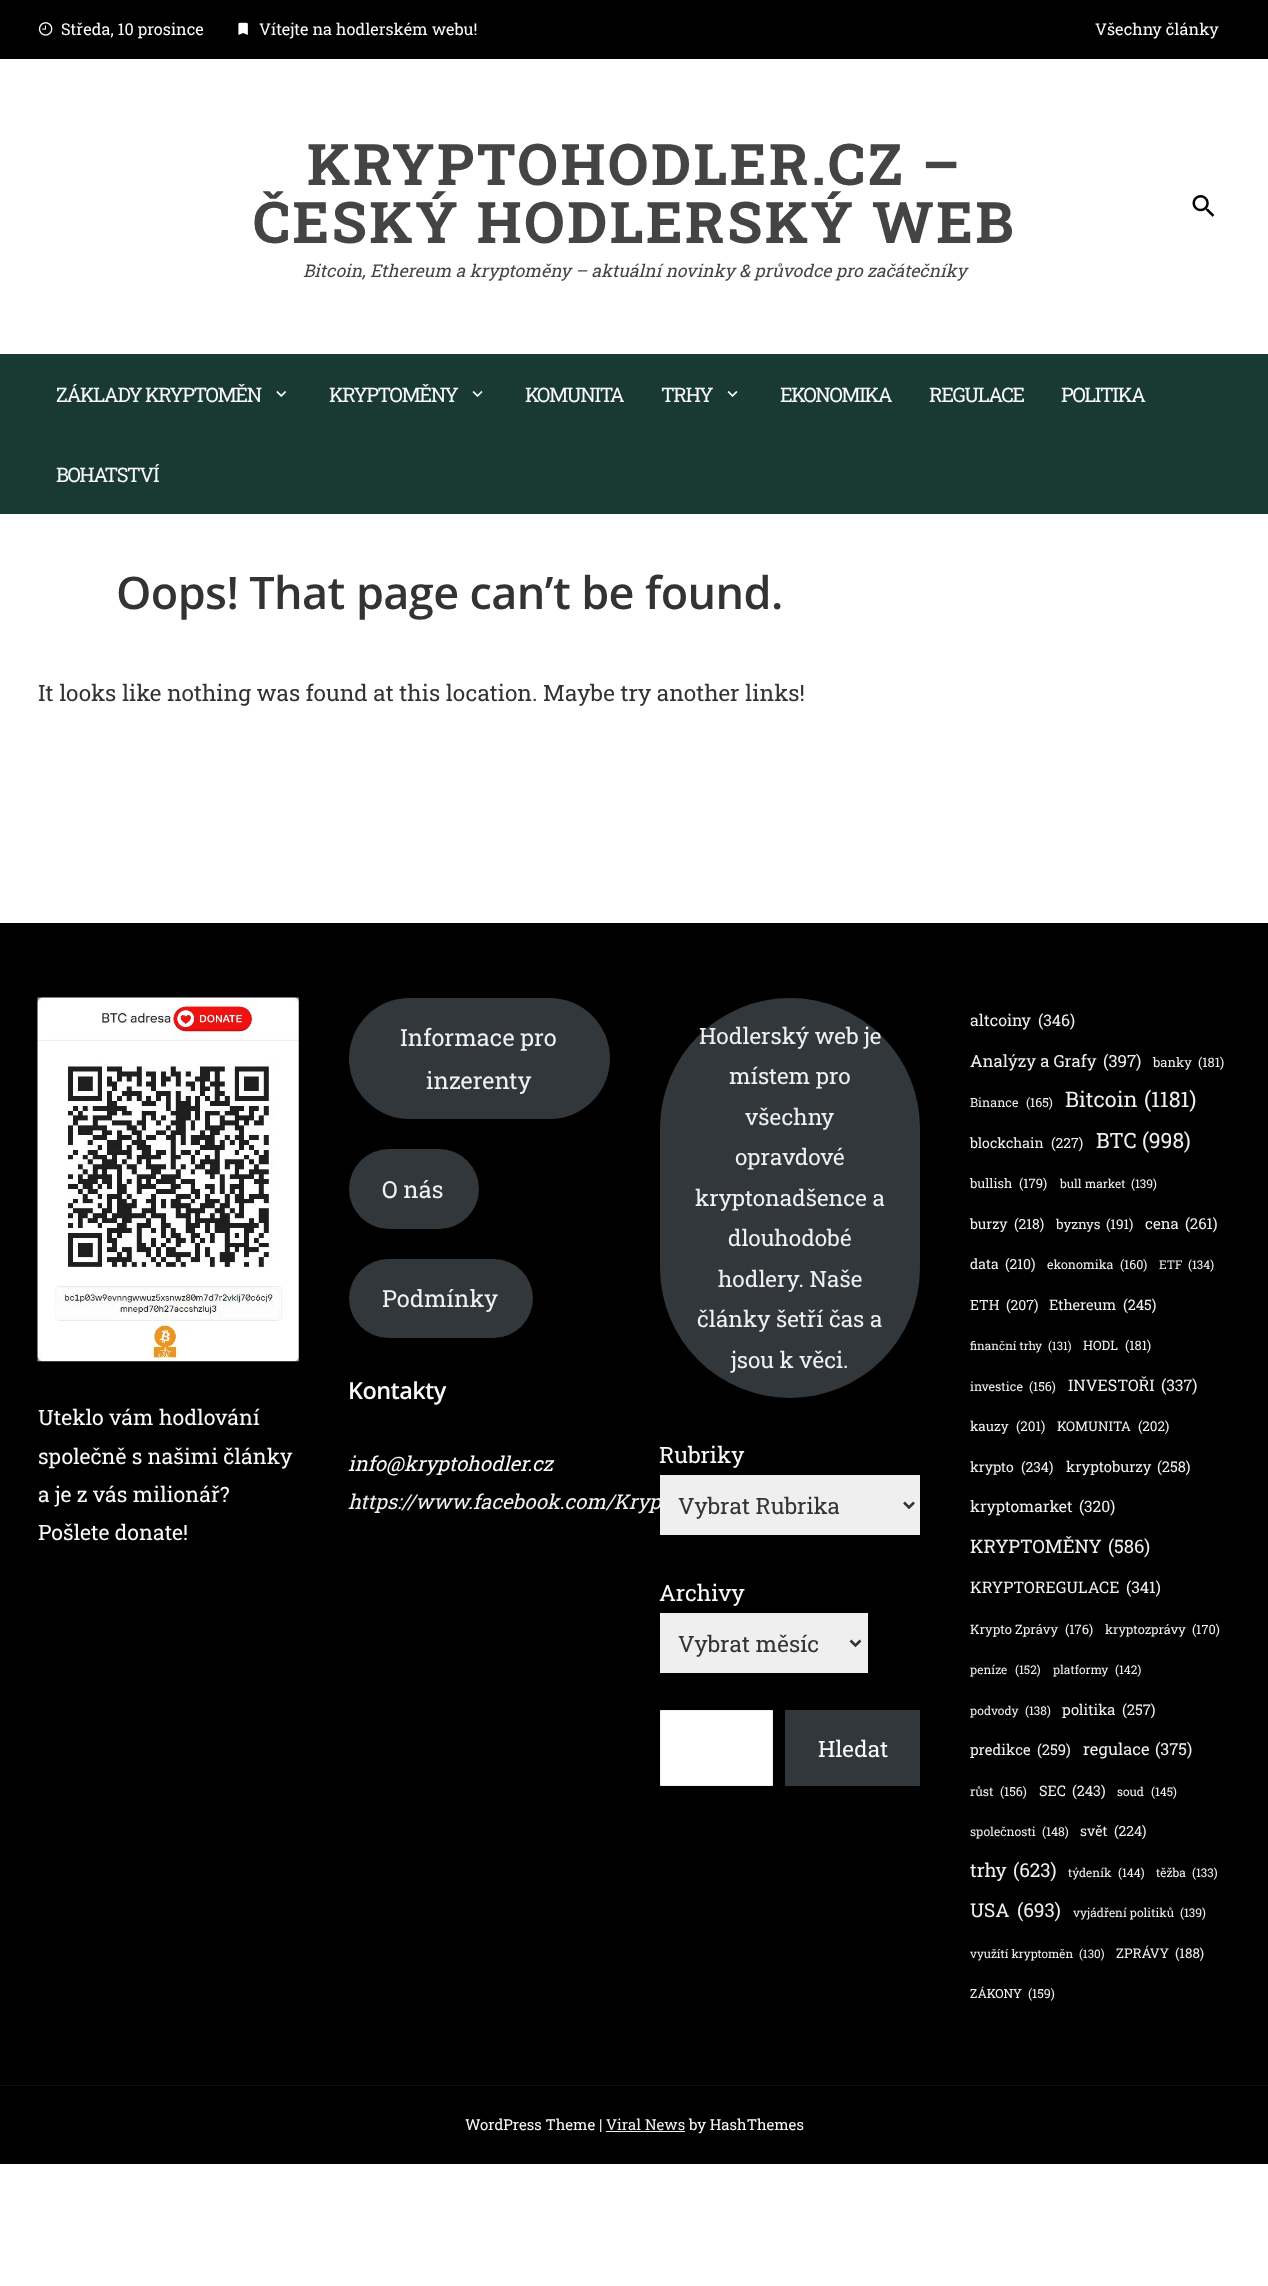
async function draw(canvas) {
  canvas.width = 1268
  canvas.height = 2286
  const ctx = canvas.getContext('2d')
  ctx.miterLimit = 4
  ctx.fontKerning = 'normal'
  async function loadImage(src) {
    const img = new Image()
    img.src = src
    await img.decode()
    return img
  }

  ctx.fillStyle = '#fff'
  ctx.fillRect(0, 0, 1268, 2286)
  ctx.fillStyle = '#000'
  ctx.fillRect(0, 0, 1268, 59)
  ctx.drawImage(await loadImage('image0.png'), 38, 22, 15, 14)
  ctx.font = '16.25px Roboto Slab'
  ctx.fillStyle = '#fafafa'
  ctx.fillText('Středa, 10 prosince', 61, 35)
  ctx.drawImage(await loadImage('image1.png'), 238, 22, 10, 13)
  ctx.fillText('Vítejte na hodlerském webu!', 259, 35)
  ctx.fillText('Všechny články', 1095, 35)
  ctx.letterSpacing = '2.5px'
  ctx.font = 'bold 57.5px Roboto Slab'
  ctx.fillStyle = '#444'
  ctx.fillText('KRYPTOHODLER.CZ –', 307, 185)
  ctx.fillText('ČESKÝ HODLERSKÝ WEB', 253, 243)
  ctx.letterSpacing = '0px'
  ctx.font = 'italic 17.5px Roboto Slab'
  ctx.fillText('Bitcoin, Ethereum a kryptoměny – aktuální novinky & průvodce pro začátečníky', 303, 277)
  ctx.drawImage(await loadImage('image2.png'), 1192, 195, 23, 22)
  ctx.fillStyle = '#193a33'
  ctx.fillRect(0, 354, 1268, 160)
  ctx.letterSpacing = '-1.4px'
  ctx.font = '20px Roboto Slab'
  ctx.fillStyle = '#fafafa'
  ctx.fillText('ZÁKLADY KRYPTOMĚN', 56, 402)
  ctx.drawImage(await loadImage('image3.png'), 276, 391, 11, 6)
  ctx.fillText('KRYPTOMĚNY', 329, 402)
  ctx.drawImage(await loadImage('image4.png'), 472, 391, 11, 6)
  ctx.fillText('KOMUNITA', 525, 402)
  ctx.fillText('TRHY', 661, 402)
  ctx.drawImage(await loadImage('image4.png'), 727, 391, 11, 6)
  ctx.fillText('EKONOMIKA', 780, 402)
  ctx.fillText('REGULACE', 929, 402)
  ctx.fillText('POLITIKA', 1061, 402)
  ctx.fillText('BOHATSTVÍ', 56, 482)
  ctx.letterSpacing = '-0.6px'
  ctx.font = '600 45px Open Sans'
  ctx.fillStyle = '#333'
  ctx.fillText('Oops! That page can’t be found.', 116, 609)
  ctx.letterSpacing = '0px'
  ctx.font = '22.5px Roboto Slab'
  ctx.fillText('It looks like nothing was found at this location. Maybe try another links!', 38, 701)
  ctx.fillStyle = '#000'
  ctx.fillRect(0, 923, 1268, 1241)
  ctx.drawImage(await loadImage('image5.png'), 37, 997, 262, 365)
  ctx.font = '21.25px Roboto Slab'
  ctx.fillStyle = '#fafafa'
  ctx.fillText('Uteklo vám hodlování', 38, 1425)
  ctx.fillText('společně s našimi články', 38, 1464)
  ctx.fillText('a je z vás milionář?', 38, 1502)
  ctx.fillText('Pošlete donate!', 38, 1540)
  ctx.fillStyle = '#32373c'
  ctx.beginPath()
  ctx.roundRect(349, 998, 261, 121, 60.5)
  ctx.fill()
  ctx.font = '23.5px Roboto Slab'
  ctx.fillStyle = '#f0f0f0'
  ctx.fillText('Informace pro', 400, 1046)
  ctx.fillText('inzerenty', 426, 1089)
  ctx.fillStyle = '#32373c'
  ctx.beginPath()
  ctx.roundRect(349, 1149, 130, 80, 40)
  ctx.fill()
  ctx.fillStyle = '#f0f0f0'
  ctx.fillText('O nás', 382, 1198)
  ctx.fillStyle = '#32373c'
  ctx.beginPath()
  ctx.roundRect(349, 1259, 184, 79, 39.5)
  ctx.fill()
  ctx.fillStyle = '#f0f0f0'
  ctx.fillText('Podmínky', 382, 1307)
  ctx.letterSpacing = '-0.6px'
  ctx.font = '600 23.5px Open Sans'
  ctx.fillStyle = '#fafafa'
  ctx.fillText('Kontakty', 348, 1399)
  ctx.letterSpacing = '0px'
  ctx.font = 'italic 20.25px Roboto Slab'
  ctx.fillText('info@kryptohodler.cz', 348, 1471)
  ctx.fillStyle = '#f0f0f0'
  ctx.fillText('https://www.facebook.com/Kryp', 348, 1509)
  ctx.fillStyle = '#32373c'
  ctx.beginPath()
  ctx.roundRect(660, 998, 260, 400, 130)
  ctx.fill()
  ctx.font = '22.5px Roboto Slab'
  ctx.fillStyle = '#f0f0f0'
  ctx.fillText('Hodlerský web je', 699, 1044)
  ctx.fillText('místem pro', 729, 1084)
  ctx.fillText('všechny', 745, 1125)
  ctx.fillText('opravdové', 735, 1165)
  ctx.fillText('kryptonadšence a', 695, 1206)
  ctx.fillText('dlouhodobé', 728, 1246)
  ctx.fillText('hodlery. Naše', 718, 1287)
  ctx.fillText('články šetří čas a', 697, 1327)
  ctx.fillText('jsou k věci.', 731, 1368)
  ctx.fillStyle = '#fafafa'
  ctx.fillText('Rubriky', 659, 1463)
  ctx.fillStyle = '#efefef'
  ctx.fillRect(660, 1475, 260, 60)
  ctx.beginPath()
  ctx.moveTo(904, 1502.5)
  ctx.lineTo(909, 1507.5)
  ctx.lineTo(914, 1502.5)
  ctx.strokeStyle = '#333'
  ctx.lineWidth = 2.5
  ctx.stroke()
  ctx.fillStyle = '#333'
  ctx.fillText('Vybrat Rubrika', 678, 1514)
  ctx.fillStyle = '#fafafa'
  ctx.fillText('Archivy', 659, 1601)
  ctx.fillStyle = '#efefef'
  ctx.fillRect(660, 1613, 208, 60)
  ctx.beginPath()
  ctx.moveTo(850.5, 1640.5)
  ctx.lineTo(855.5, 1645.5)
  ctx.lineTo(860.5, 1640.5)
  ctx.stroke()
  ctx.fillStyle = '#333'
  ctx.fillText('Vybrat měsíc', 678, 1652)
  ctx.fillStyle = '#fff'
  ctx.beginPath()
  ctx.rect(660.5, 1710.5, 112, 75)
  ctx.fill()
  ctx.strokeStyle = '#eee'
  ctx.lineWidth = 1
  ctx.stroke()
  ctx.fillStyle = '#32373c'
  ctx.fillRect(785, 1710, 135, 76)
  ctx.fillStyle = '#fafafa'
  ctx.fillText('Hledat', 818, 1757)
  ctx.font = '16px Roboto Slab'
  ctx.fillStyle = '#f0f0f0'
  ctx.fillText('altcoiny', 970, 1026)
  ctx.fillText('(346)', 1038, 1026)
  ctx.font = '16.75px Roboto Slab'
  ctx.fillText('Analýzy a Grafy', 970, 1067)
  ctx.fillText('(397)', 1103, 1067)
  ctx.font = '13px Roboto Slab'
  ctx.fillText('banky', 1153, 1067)
  ctx.fillText('(181)', 1198, 1067)
  ctx.font = '12.5px Roboto Slab'
  ctx.fillText('Binance', 970, 1107)
  ctx.fillText('(165)', 1026, 1107)
  ctx.font = '21.5px Roboto Slab'
  ctx.fillText('Bitcoin', 1065, 1107)
  ctx.fillText('(1181)', 1144, 1107)
  ctx.font = '14px Roboto Slab'
  ctx.fillText('blockchain', 970, 1148)
  ctx.fillText('(227)', 1051, 1148)
  ctx.font = '21px Roboto Slab'
  ctx.fillText('BTC', 1096, 1148)
  ctx.fillText('(998)', 1142, 1148)
  ctx.font = '13px Roboto Slab'
  ctx.fillText('bullish', 970, 1188)
  ctx.fillText('(179)', 1019, 1188)
  ctx.font = '12px Roboto Slab'
  ctx.fillText('bull market', 1060, 1188)
  ctx.fillText('(139)', 1131, 1188)
  ctx.font = '14px Roboto Slab'
  ctx.fillText('burzy', 970, 1229)
  ctx.fillText('(218)', 1014, 1229)
  ctx.font = '13.5px Roboto Slab'
  ctx.fillText('byznys', 1056, 1229)
  ctx.fillText('(191)', 1106, 1229)
  ctx.font = '15px Roboto Slab'
  ctx.fillText('cena', 1145, 1229)
  ctx.fillText('(261)', 1185, 1229)
  ctx.font = '14px Roboto Slab'
  ctx.fillText('data', 970, 1269)
  ctx.fillText('(210)', 1005, 1269)
  ctx.font = '12.5px Roboto Slab'
  ctx.fillText('ekonomika', 1047, 1269)
  ctx.fillText('(160)', 1120, 1269)
  ctx.font = '12px Roboto Slab'
  ctx.fillText('ETF', 1159, 1269)
  ctx.fillText('(134)', 1188, 1269)
  ctx.font = '14px Roboto Slab'
  ctx.fillText('ETH', 970, 1310)
  ctx.fillText('(207)', 1006, 1310)
  ctx.font = '14.5px Roboto Slab'
  ctx.fillText('Ethereum', 1049, 1310)
  ctx.fillText('(245)', 1123, 1310)
  ctx.font = '11.75px Roboto Slab'
  ctx.fillText('finanční trhy', 970, 1350)
  ctx.fillText('(131)', 1048, 1350)
  ctx.font = '13px Roboto Slab'
  ctx.fillText('HODL', 1083, 1350)
  ctx.fillText('(181)', 1125, 1350)
  ctx.font = '12.5px Roboto Slab'
  ctx.fillText('investice', 970, 1391)
  ctx.fillText('(156)', 1029, 1391)
  ctx.font = '16px Roboto Slab'
  ctx.fillText('INVESTOŘI', 1068, 1391)
  ctx.fillText('(337)', 1161, 1391)
  ctx.font = '13.5px Roboto Slab'
  ctx.fillText('kauzy', 970, 1431)
  ctx.fillText('(201)', 1016, 1431)
  ctx.fillText('KOMUNITA', 1057, 1431)
  ctx.fillText('(202)', 1138, 1431)
  ctx.font = '14px Roboto Slab'
  ctx.fillText('krypto', 970, 1472)
  ctx.fillText('(234)', 1021, 1472)
  ctx.font = '14.75px Roboto Slab'
  ctx.fillText('kryptoburzy', 1066, 1472)
  ctx.fillText('(258)', 1157, 1472)
  ctx.font = '15.75px Roboto Slab'
  ctx.fillText('kryptomarket', 970, 1512)
  ctx.fillText('(320)', 1079, 1512)
  ctx.font = '18.5px Roboto Slab'
  ctx.fillText('KRYPTOMĚNY', 970, 1553)
  ctx.fillText('(586)', 1108, 1553)
  ctx.font = '16px Roboto Slab'
  ctx.fillText('KRYPTOREGULACE', 970, 1593)
  ctx.fillText('(341)', 1126, 1593)
  ctx.font = '13px Roboto Slab'
  ctx.fillText('Krypto Zprávy', 970, 1634)
  ctx.fillText('(176)', 1065, 1634)
  ctx.font = '12.75px Roboto Slab'
  ctx.fillText('kryptozprávy', 1105, 1634)
  ctx.fillText('(170)', 1192, 1634)
  ctx.font = '12px Roboto Slab'
  ctx.fillText('peníze', 970, 1674)
  ctx.fillText('(152)', 1015, 1674)
  ctx.fillText('platformy', 1053, 1674)
  ctx.fillText('(142)', 1115, 1674)
  ctx.fillText('podvody', 970, 1715)
  ctx.fillText('(138)', 1025, 1715)
  ctx.font = '14.75px Roboto Slab'
  ctx.fillText('politika', 1062, 1715)
  ctx.fillText('(257)', 1122, 1715)
  ctx.fillText('predikce', 970, 1755)
  ctx.fillText('(259)', 1037, 1755)
  ctx.font = '16.5px Roboto Slab'
  ctx.fillText('regulace', 1083, 1755)
  ctx.fillText('(375)', 1155, 1755)
  ctx.font = '12.5px Roboto Slab'
  ctx.fillText('růst', 970, 1796)
  ctx.fillText('(156)', 1000, 1796)
  ctx.font = '14.5px Roboto Slab'
  ctx.fillText('SEC', 1039, 1796)
  ctx.fillText('(243)', 1072, 1796)
  ctx.font = '12px Roboto Slab'
  ctx.fillText('soud', 1117, 1796)
  ctx.fillText('(145)', 1151, 1796)
  ctx.font = '12.25px Roboto Slab'
  ctx.fillText('společnosti', 970, 1836)
  ctx.fillText('(148)', 1042, 1836)
  ctx.font = '14px Roboto Slab'
  ctx.fillText('svět', 1080, 1836)
  ctx.fillText('(224)', 1114, 1836)
  ctx.font = '19px Roboto Slab'
  ctx.fillText('trhy', 970, 1877)
  ctx.fillText('(623)', 1013, 1877)
  ctx.font = '12px Roboto Slab'
  ctx.fillText('týdeník', 1068, 1877)
  ctx.fillText('(144)', 1118, 1877)
  ctx.fillText('těžba', 1156, 1877)
  ctx.fillText('(133)', 1192, 1877)
  ctx.font = '19px Roboto Slab'
  ctx.fillText('USA', 970, 1917)
  ctx.fillText('(693)', 1017, 1917)
  ctx.font = '12px Roboto Slab'
  ctx.fillText('vyjádření politiků', 1073, 1917)
  ctx.fillText('(139)', 1180, 1917)
  ctx.font = '11.75px Roboto Slab'
  ctx.fillText('využítí kryptoměn', 970, 1958)
  ctx.fillText('(130)', 1079, 1958)
  ctx.font = '13.5px Roboto Slab'
  ctx.fillText('ZPRÁVY', 1116, 1958)
  ctx.fillText('(188)', 1175, 1958)
  ctx.font = '12.5px Roboto Slab'
  ctx.fillText('ZÁKONY', 970, 1998)
  ctx.fillText('(159)', 1028, 1998)
  ctx.fillStyle = '#111'
  ctx.fillRect(0, 2085, 1268, 1)
  ctx.font = '15px Roboto Slab'
  ctx.fillStyle = '#fafafa'
  ctx.fillText('WordPress Theme |', 465, 2130)
  ctx.fillStyle = '#f0f0f0'
  ctx.fillText('Viral News', 606, 2130)
  ctx.fillRect(606, 2131, 79, 1)
  ctx.fillStyle = '#fafafa'
  ctx.fillText('by HashThemes', 689, 2130)
}

draw(document.querySelector('canvas'))
